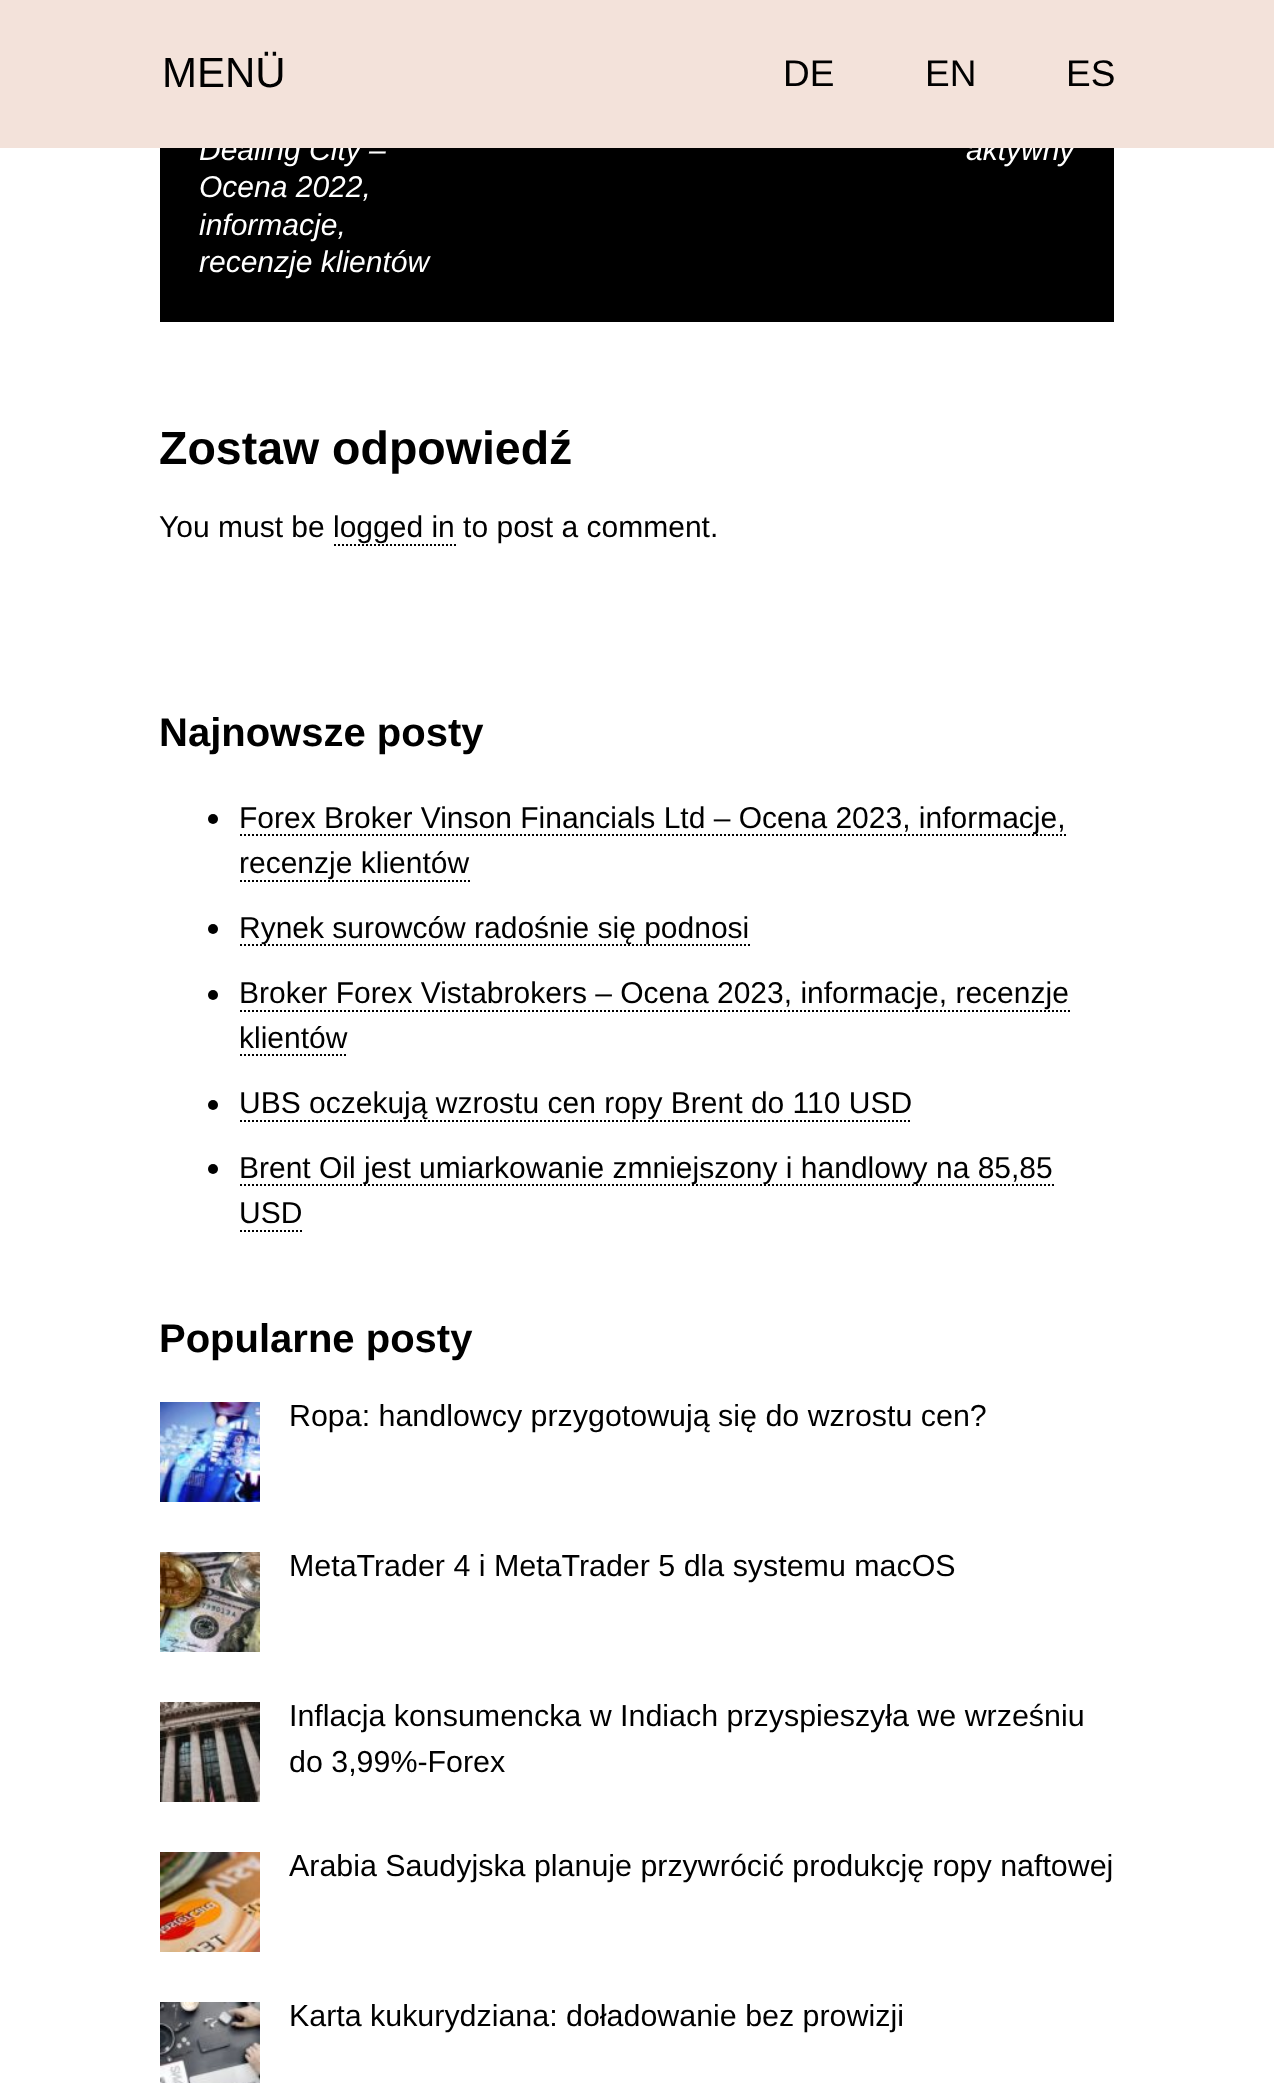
async function draw(canvas) {
  canvas.width = 1274
  canvas.height = 2083
  const ctx = canvas.getContext('2d')
  ctx.miterLimit = 4
  ctx.fontKerning = 'normal'
  async function loadImage(src) {
    const img = new Image()
    img.src = src
    await img.decode()
    return img
  }

  ctx.fillStyle = '#fff'
  ctx.fillRect(0, 0, 1274, 2083)
  ctx.fillStyle = '#000'
  ctx.fillRect(160, 148, 954, 174)
  ctx.font = 'italic 30px Liberation Sans'
  ctx.fillStyle = '#fff'
  ctx.fillText('Dealing City –', 199, 160)
  ctx.fillText('aktywny', 966, 160)
  ctx.fillStyle = '#f3e2da'
  ctx.fillRect(0, 0, 1274, 148)
  ctx.font = '42px Liberation Sans'
  ctx.fillStyle = '#000'
  ctx.fillText('MENÜ', 162, 87)
  ctx.font = '37px Liberation Sans'
  ctx.fillText('DE', 783, 86)
  ctx.fillText('EN', 925, 86)
  ctx.fillText('ES', 1066, 86)
  ctx.font = 'italic 30px Liberation Sans'
  ctx.fillStyle = '#fff'
  ctx.fillText('Ocena 2022,', 199, 197)
  ctx.fillText('informacje,', 199, 235)
  ctx.fillText('recenzje klientów', 199, 272)
  ctx.font = 'bold 46.5px Liberation Sans'
  ctx.fillStyle = '#000'
  ctx.fillText('Zostaw odpowiedź', 159, 464)
  ctx.font = '30px Liberation Sans'
  ctx.fillText('You must be logged in to post a comment.', 159, 537)
  ctx.beginPath()
  ctx.moveTo(334, 545)
  ctx.lineTo(456, 545)
  ctx.strokeStyle = '#000'
  ctx.lineWidth = 2
  ctx.setLineDash([2, 2])
  ctx.stroke()
  ctx.font = 'bold 40px Liberation Sans'
  ctx.fillText('Najnowsze posty', 159, 746)
  ctx.beginPath()
  ctx.arc(213, 819, 5, 0, 2 * Math.PI)
  ctx.fill()
  ctx.beginPath()
  ctx.moveTo(240, 835)
  ctx.lineTo(1066, 835)
  ctx.stroke()
  ctx.font = '30px Liberation Sans'
  ctx.fillText('Forex Broker Vinson Financials Ltd – Ocena 2023, informacje,', 239, 828)
  ctx.fillText('recenzje klientów', 239, 873)
  ctx.beginPath()
  ctx.moveTo(240, 881)
  ctx.lineTo(470, 881)
  ctx.stroke()
  ctx.beginPath()
  ctx.arc(213, 929, 5, 0, 2 * Math.PI)
  ctx.fill()
  ctx.beginPath()
  ctx.moveTo(240, 945)
  ctx.lineTo(750, 945)
  ctx.stroke()
  ctx.fillText('Rynek surowców radośnie się podnosi', 239, 938)
  ctx.beginPath()
  ctx.arc(213, 995, 5, 0, 2 * Math.PI)
  ctx.fill()
  ctx.fillText('Broker Forex Vistabrokers – Ocena 2023, informacje, recenzje', 239, 1003)
  ctx.beginPath()
  ctx.moveTo(240, 1011)
  ctx.lineTo(1070, 1011)
  ctx.stroke()
  ctx.fillText('klientów', 239, 1048)
  ctx.beginPath()
  ctx.moveTo(240, 1055)
  ctx.lineTo(348, 1055)
  ctx.stroke()
  ctx.beginPath()
  ctx.arc(213, 1105, 5, 0, 2 * Math.PI)
  ctx.fill()
  ctx.fillText('UBS oczekują wzrostu cen ropy Brent do 110 USD', 239, 1113)
  ctx.beginPath()
  ctx.moveTo(240, 1121)
  ctx.lineTo(912, 1121)
  ctx.stroke()
  ctx.beginPath()
  ctx.arc(213, 1169, 5, 0, 2 * Math.PI)
  ctx.fill()
  ctx.beginPath()
  ctx.moveTo(240, 1185)
  ctx.lineTo(1054, 1185)
  ctx.stroke()
  ctx.fillText('Brent Oil jest umiarkowanie zmniejszony i handlowy na 85,85', 239, 1178)
  ctx.fillText('USD', 239, 1223)
  ctx.beginPath()
  ctx.moveTo(240, 1231)
  ctx.lineTo(302, 1231)
  ctx.stroke()
  ctx.font = 'bold 40px Liberation Sans'
  ctx.fillText('Popularne posty', 159, 1352)
  ctx.drawImage(await loadImage('image0.png'), 160, 1402, 100, 100)
  ctx.font = '30.4px Liberation Sans'
  ctx.fillText('Ropa: handlowcy przygotowują się do wzrostu cen?', 289, 1426)
  ctx.drawImage(await loadImage('image1.png'), 160, 1552, 100, 100)
  ctx.fillText('MetaTrader 4 i MetaTrader 5 dla systemu macOS', 289, 1576)
  ctx.drawImage(await loadImage('image2.png'), 160, 1702, 100, 100)
  ctx.fillText('Inflacja konsumencka w Indiach przyspieszyła we wrześniu', 289, 1726)
  ctx.fillText('do 3,99%-Forex', 289, 1772)
  ctx.drawImage(await loadImage('image3.png'), 160, 1852, 100, 100)
  ctx.fillText('Arabia Saudyjska planuje przywrócić produkcję ropy naftowej', 289, 1876)
  ctx.drawImage(await loadImage('image4.png'), 160, 2002, 100, 81)
  ctx.fillText('Karta kukurydziana: doładowanie bez prowizji', 289, 2026)
}

draw(document.querySelector('canvas'))
